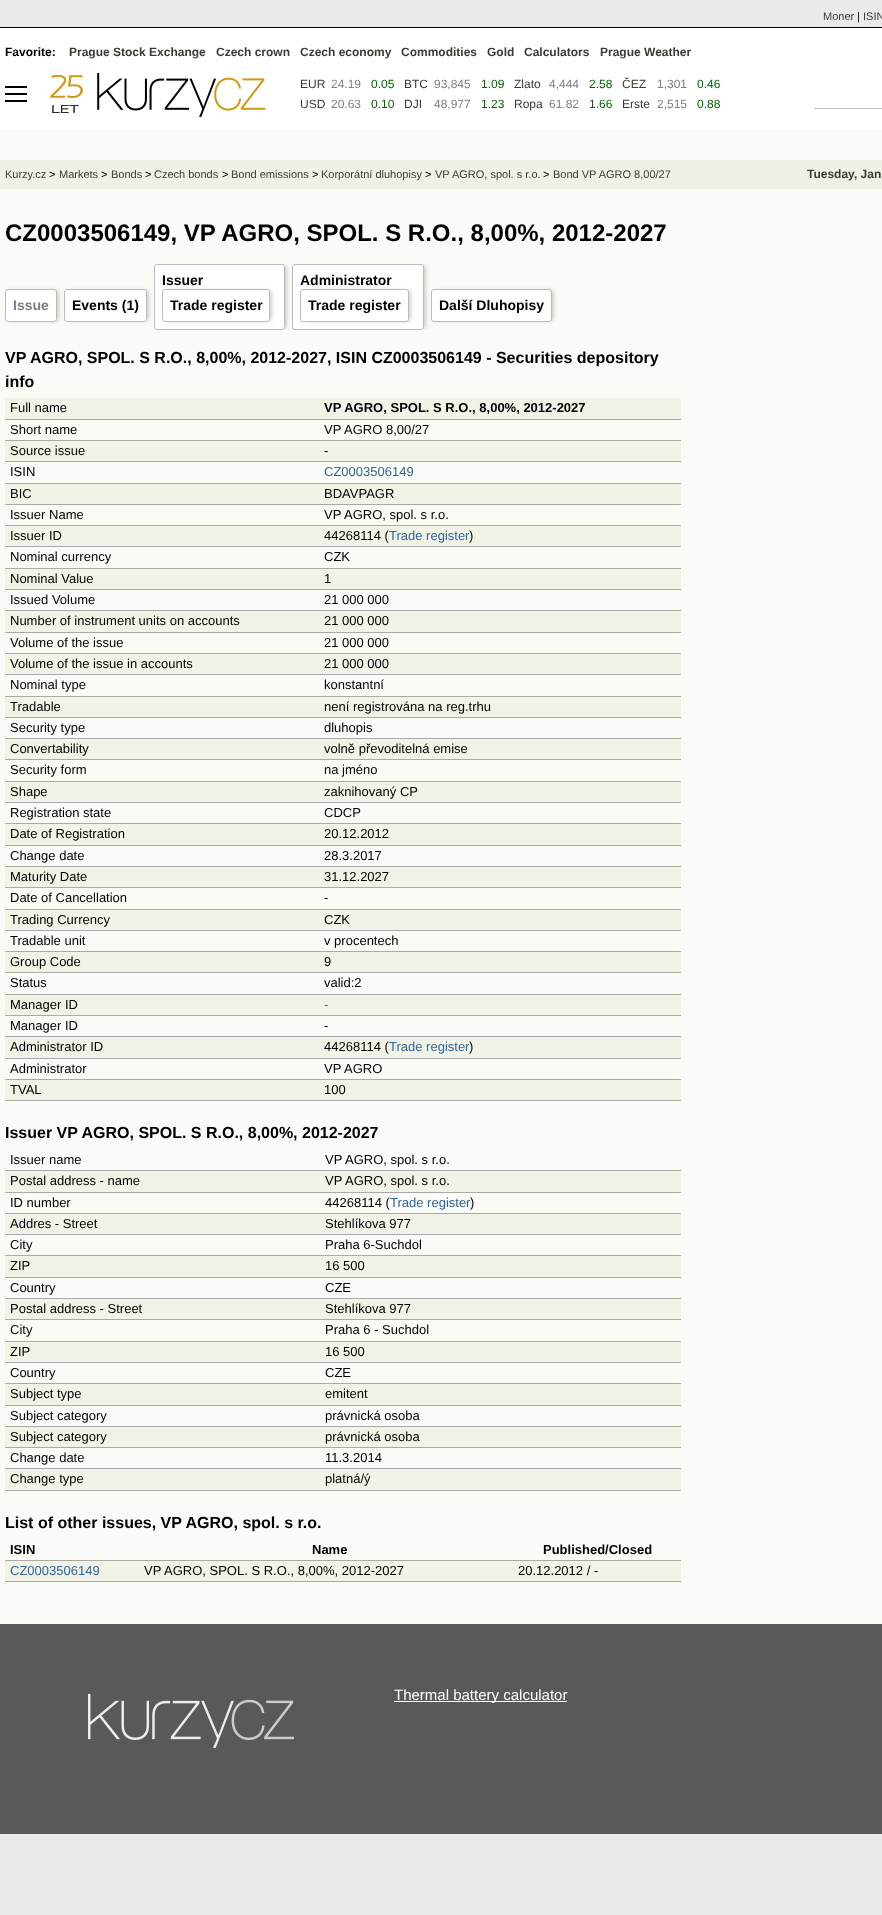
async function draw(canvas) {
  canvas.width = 882
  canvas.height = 1915
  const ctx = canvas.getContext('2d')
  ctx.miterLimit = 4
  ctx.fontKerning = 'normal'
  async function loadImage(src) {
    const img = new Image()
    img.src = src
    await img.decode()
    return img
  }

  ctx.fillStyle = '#eaeaea'
  ctx.fillRect(0, 0, 882, 1915)
  ctx.fillStyle = '#fafbf7'
  ctx.fillRect(0, 129, 882, 1495)
  ctx.fillStyle = '#000'
  ctx.fillRect(0, 27, 882, 1)
  ctx.font = '11px Liberation Sans'
  ctx.fillStyle = '#393c31'
  ctx.fillText('Moner', 823, 20)
  ctx.fillStyle = '#000'
  ctx.fillText('|', 857, 20)
  ctx.fillStyle = '#393c31'
  ctx.fillText('ISIN', 863, 20)
  ctx.fillStyle = '#fff'
  ctx.fillRect(0, 28, 882, 101)
  ctx.font = 'bold 12px Liberation Sans'
  ctx.fillStyle = '#000'
  ctx.fillText('Favorite:', 5, 56)
  ctx.fillStyle = '#393c31'
  ctx.fillText('Prague Stock Exchange', 69, 56)
  ctx.fillText('Czech crown', 216, 56)
  ctx.fillText('Czech economy', 300, 56)
  ctx.fillText('Commodities', 401, 56)
  ctx.fillText('Gold', 487, 56)
  ctx.fillText('Calculators', 524, 56)
  ctx.fillText('Prague Weather', 600, 56)
  ctx.fillStyle = '#000'
  ctx.fillRect(5, 86, 22, 2)
  ctx.drawImage(await loadImage('image0.png'), 50, 73, 216, 44)
  ctx.font = '12px Liberation Sans'
  ctx.fillStyle = '#393c31'
  ctx.fillText('EUR', 300, 88)
  ctx.fillStyle = '#808080'
  ctx.fillText('24.19', 331, 88)
  ctx.fillStyle = '#060'
  ctx.fillText('0.05', 371, 88)
  ctx.fillStyle = '#393c31'
  ctx.fillText('BTC', 404, 88)
  ctx.fillStyle = '#808080'
  ctx.fillText('93,845', 434, 88)
  ctx.fillStyle = '#060'
  ctx.fillText('1.09', 481, 88)
  ctx.fillStyle = '#393c31'
  ctx.fillText('Zlato', 514, 88)
  ctx.fillStyle = '#808080'
  ctx.fillText('4,444', 549, 88)
  ctx.fillStyle = '#060'
  ctx.fillText('2.58', 589, 88)
  ctx.fillStyle = '#393c31'
  ctx.fillText('ČEZ', 622, 88)
  ctx.fillStyle = '#808080'
  ctx.fillText('1,301', 657, 88)
  ctx.fillStyle = '#060'
  ctx.fillText('0.46', 697, 88)
  ctx.fillStyle = '#393c31'
  ctx.fillText('USD', 300, 108)
  ctx.fillStyle = '#808080'
  ctx.fillText('20.63', 331, 108)
  ctx.fillStyle = '#060'
  ctx.fillText('0.10', 371, 108)
  ctx.fillStyle = '#393c31'
  ctx.fillText('DJI', 404, 108)
  ctx.fillStyle = '#808080'
  ctx.fillText('48,977', 434, 108)
  ctx.fillStyle = '#060'
  ctx.fillText('1.23', 481, 108)
  ctx.fillStyle = '#393c31'
  ctx.fillText('Ropa', 514, 108)
  ctx.fillStyle = '#808080'
  ctx.fillText('61.82', 549, 108)
  ctx.fillStyle = '#060'
  ctx.fillText('1.66', 589, 108)
  ctx.fillStyle = '#393c31'
  ctx.fillText('Erste', 622, 108)
  ctx.fillStyle = '#808080'
  ctx.fillText('2,515', 657, 108)
  ctx.fillStyle = '#060'
  ctx.fillText('0.88', 697, 108)
  ctx.fillStyle = '#000'
  ctx.fillRect(5, 93, 22, 2)
  ctx.fillRect(5, 100, 22, 2)
  ctx.fillStyle = '#c0c0c0'
  ctx.fillRect(814, 108, 68, 1)
  ctx.fillStyle = '#f2efe6'
  ctx.fillRect(0, 160, 882, 29)
  ctx.font = '11px Liberation Sans'
  ctx.fillStyle = '#393c31'
  ctx.fillText('Kurzy.cz', 5, 178)
  ctx.fillStyle = '#000'
  ctx.fillText('>', 49, 178)
  ctx.fillStyle = '#393c31'
  ctx.fillText('Markets', 59, 178)
  ctx.fillStyle = '#000'
  ctx.fillText('>', 101, 178)
  ctx.fillStyle = '#393c31'
  ctx.fillText('Bonds', 111, 178)
  ctx.fillStyle = '#000'
  ctx.fillText('>', 145, 178)
  ctx.fillStyle = '#393c31'
  ctx.fillText('Czech bonds', 154, 178)
  ctx.fillStyle = '#000'
  ctx.fillText('>', 222, 178)
  ctx.fillStyle = '#393c31'
  ctx.fillText('Bond emissions', 231, 178)
  ctx.fillStyle = '#000'
  ctx.fillText('>', 312, 178)
  ctx.fillStyle = '#393c31'
  ctx.fillText('Korporátní dluhopisy', 321, 178)
  ctx.fillStyle = '#000'
  ctx.fillText('>', 425, 178)
  ctx.fillStyle = '#393c31'
  ctx.fillText('VP AGRO, spol. s r.o.', 435, 178)
  ctx.fillStyle = '#000'
  ctx.fillText('>', 543, 178)
  ctx.fillStyle = '#393c31'
  ctx.fillText('Bond VP AGRO 8,00/27', 553, 178)
  ctx.font = 'bold 12px Liberation Sans'
  ctx.fillText('Tuesday, Jan', 807, 178)
  ctx.font = 'bold 24px Liberation Sans'
  ctx.fillStyle = '#000'
  ctx.fillText('CZ0003506149, VP AGRO, SPOL. S R.O., 8,00%, 2012-2027', 5, 241)
  ctx.fillStyle = '#bbb'
  ctx.filter = 'blur(2.5px)'
  ctx.beginPath()
  ctx.roundRect(10, 291, 48, 29, 1)
  ctx.fill()
  ctx.filter = 'none'
  ctx.fillStyle = '#fff'
  ctx.beginPath()
  ctx.roundRect(5.5, 289.5, 51, 32, 2.5)
  ctx.fill()
  ctx.strokeStyle = '#bbb'
  ctx.stroke()
  ctx.font = 'bold 14px Liberation Sans'
  ctx.fillStyle = '#808080'
  ctx.fillText('Issue', 13, 310)
  ctx.fillStyle = '#bbb'
  ctx.filter = 'blur(2.5px)'
  ctx.beginPath()
  ctx.roundRect(69, 291, 79, 29, 1)
  ctx.fill()
  ctx.filter = 'none'
  ctx.fillStyle = '#fff'
  ctx.beginPath()
  ctx.roundRect(64.5, 289.5, 82, 32, 2.5)
  ctx.fill()
  ctx.stroke()
  ctx.fillStyle = '#000'
  ctx.fillText('Events (1)', 72, 310)
  ctx.save()
  ctx.beginPath()
  ctx.rect(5, 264, 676, 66)
  ctx.clip()
  ctx.fillStyle = '#bbb'
  ctx.filter = 'blur(2.5px)'
  ctx.beginPath()
  ctx.roundRect(159, 266, 127, 62, 1)
  ctx.fill()
  ctx.filter = 'none'
  ctx.restore()
  ctx.fillStyle = '#fff'
  ctx.beginPath()
  ctx.roundRect(154.5, 264.5, 130, 65, 2.5)
  ctx.fill()
  ctx.stroke()
  ctx.fillStyle = '#000'
  ctx.fillText('Issuer', 162, 285)
  ctx.fillStyle = '#bbb'
  ctx.filter = 'blur(2.5px)'
  ctx.beginPath()
  ctx.roundRect(167, 291, 104, 29, 1)
  ctx.fill()
  ctx.filter = 'none'
  ctx.fillStyle = '#fff'
  ctx.beginPath()
  ctx.roundRect(162.5, 289.5, 107, 32, 2.5)
  ctx.fill()
  ctx.stroke()
  ctx.fillStyle = '#000'
  ctx.fillText('Trade register', 170, 310)
  ctx.save()
  ctx.beginPath()
  ctx.rect(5, 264, 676, 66)
  ctx.clip()
  ctx.fillStyle = '#bbb'
  ctx.filter = 'blur(2.5px)'
  ctx.beginPath()
  ctx.roundRect(297, 266, 128, 62, 1)
  ctx.fill()
  ctx.filter = 'none'
  ctx.restore()
  ctx.fillStyle = '#fff'
  ctx.beginPath()
  ctx.roundRect(292.5, 264.5, 131, 65, 2.5)
  ctx.fill()
  ctx.stroke()
  ctx.fillStyle = '#000'
  ctx.fillText('Administrator', 300, 285)
  ctx.fillStyle = '#bbb'
  ctx.filter = 'blur(2.5px)'
  ctx.beginPath()
  ctx.roundRect(305, 291, 105, 29, 1)
  ctx.fill()
  ctx.filter = 'none'
  ctx.fillStyle = '#fff'
  ctx.beginPath()
  ctx.roundRect(300.5, 289.5, 108, 32, 2.5)
  ctx.fill()
  ctx.stroke()
  ctx.fillStyle = '#000'
  ctx.fillText('Trade register', 308, 310)
  ctx.fillStyle = '#bbb'
  ctx.filter = 'blur(2.5px)'
  ctx.beginPath()
  ctx.roundRect(436, 291, 117, 29, 1)
  ctx.fill()
  ctx.filter = 'none'
  ctx.fillStyle = '#fff'
  ctx.beginPath()
  ctx.roundRect(431.5, 289.5, 120, 32, 2.5)
  ctx.fill()
  ctx.stroke()
  ctx.fillStyle = '#000'
  ctx.fillText('Další Dluhopisy', 439, 310)
  ctx.font = 'bold 16px Liberation Sans'
  ctx.fillText('VP AGRO, SPOL. S R.O., 8,00%, 2012-2027, ISIN CZ0003506149 - Securities depository', 5, 363)
  ctx.fillText('info', 5, 387)
  ctx.fillStyle = '#f1f3e6'
  ctx.fillRect(5, 398, 676, 21)
  ctx.fillStyle = '#aaa'
  ctx.fillRect(5, 419, 676, 1)
  ctx.font = '13px Liberation Sans'
  ctx.fillStyle = '#000'
  ctx.fillText('Full name', 10, 412)
  ctx.font = 'bold 13px Liberation Sans'
  ctx.fillText('VP AGRO, SPOL. S R.O., 8,00%, 2012-2027', 324, 412)
  ctx.fillStyle = '#aaa'
  ctx.fillRect(5, 440, 676, 1)
  ctx.font = '13px Liberation Sans'
  ctx.fillStyle = '#000'
  ctx.fillText('Short name', 10, 434)
  ctx.fillText('VP AGRO 8,00/27', 324, 434)
  ctx.fillStyle = '#f1f3e6'
  ctx.fillRect(5, 441, 676, 20)
  ctx.fillStyle = '#aaa'
  ctx.fillRect(5, 461, 676, 1)
  ctx.fillStyle = '#000'
  ctx.fillText('Source issue', 10, 455)
  ctx.fillText('-', 324, 455)
  ctx.fillStyle = '#aaa'
  ctx.fillRect(5, 483, 676, 1)
  ctx.fillStyle = '#000'
  ctx.fillText('ISIN', 10, 476)
  ctx.fillStyle = '#369'
  ctx.fillText('CZ0003506149', 324, 476)
  ctx.fillStyle = '#f1f3e6'
  ctx.fillRect(5, 484, 676, 20)
  ctx.fillStyle = '#aaa'
  ctx.fillRect(5, 504, 676, 1)
  ctx.fillStyle = '#000'
  ctx.fillText('BIC', 10, 498)
  ctx.fillText('BDAVPAGR', 324, 498)
  ctx.fillStyle = '#aaa'
  ctx.fillRect(5, 525, 676, 1)
  ctx.fillStyle = '#000'
  ctx.fillText('Issuer Name', 10, 519)
  ctx.fillText('VP AGRO, spol. s r.o.', 324, 519)
  ctx.fillStyle = '#f1f3e6'
  ctx.fillRect(5, 526, 676, 20)
  ctx.fillStyle = '#aaa'
  ctx.fillRect(5, 546, 676, 1)
  ctx.fillStyle = '#000'
  ctx.fillText('Issuer ID', 10, 540)
  ctx.fillText('44268114 (', 324, 540)
  ctx.fillStyle = '#369'
  ctx.fillText('Trade register', 389, 540)
  ctx.fillStyle = '#000'
  ctx.fillText(')', 469, 540)
  ctx.fillStyle = '#aaa'
  ctx.fillRect(5, 568, 676, 1)
  ctx.fillStyle = '#000'
  ctx.fillText('Nominal currency', 10, 561)
  ctx.fillText('CZK', 324, 561)
  ctx.fillStyle = '#f1f3e6'
  ctx.fillRect(5, 569, 676, 20)
  ctx.fillStyle = '#aaa'
  ctx.fillRect(5, 589, 676, 1)
  ctx.fillStyle = '#000'
  ctx.fillText('Nominal Value', 10, 583)
  ctx.fillText('1', 324, 583)
  ctx.fillStyle = '#aaa'
  ctx.fillRect(5, 610, 676, 1)
  ctx.fillStyle = '#000'
  ctx.fillText('Issued Volume', 10, 604)
  ctx.fillText('21 000 000', 324, 604)
  ctx.fillStyle = '#f1f3e6'
  ctx.fillRect(5, 611, 676, 21)
  ctx.fillStyle = '#aaa'
  ctx.fillRect(5, 632, 676, 1)
  ctx.fillStyle = '#000'
  ctx.fillText('Number of instrument units on accounts', 10, 625)
  ctx.fillText('21 000 000', 324, 625)
  ctx.fillStyle = '#aaa'
  ctx.fillRect(5, 653, 676, 1)
  ctx.fillStyle = '#000'
  ctx.fillText('Volume of the issue', 10, 647)
  ctx.fillText('21 000 000', 324, 647)
  ctx.fillStyle = '#f1f3e6'
  ctx.fillRect(5, 654, 676, 20)
  ctx.fillStyle = '#aaa'
  ctx.fillRect(5, 674, 676, 1)
  ctx.fillStyle = '#000'
  ctx.fillText('Volume of the issue in accounts', 10, 668)
  ctx.fillText('21 000 000', 324, 668)
  ctx.fillStyle = '#aaa'
  ctx.fillRect(5, 696, 676, 1)
  ctx.fillStyle = '#000'
  ctx.fillText('Nominal type', 10, 689)
  ctx.fillText('konstantní', 324, 689)
  ctx.fillStyle = '#f1f3e6'
  ctx.fillRect(5, 697, 676, 20)
  ctx.fillStyle = '#aaa'
  ctx.fillRect(5, 717, 676, 1)
  ctx.fillStyle = '#000'
  ctx.fillText('Tradable', 10, 711)
  ctx.fillText('není registrována na reg.trhu', 324, 711)
  ctx.fillStyle = '#aaa'
  ctx.fillRect(5, 738, 676, 1)
  ctx.fillStyle = '#000'
  ctx.fillText('Security type', 10, 732)
  ctx.fillText('dluhopis', 324, 732)
  ctx.fillStyle = '#f1f3e6'
  ctx.fillRect(5, 739, 676, 20)
  ctx.fillStyle = '#aaa'
  ctx.fillRect(5, 759, 676, 1)
  ctx.fillStyle = '#000'
  ctx.fillText('Convertability', 10, 753)
  ctx.fillText('volně převoditelná emise', 324, 753)
  ctx.fillStyle = '#aaa'
  ctx.fillRect(5, 781, 676, 1)
  ctx.fillStyle = '#000'
  ctx.fillText('Security form', 10, 774)
  ctx.fillText('na jméno', 324, 774)
  ctx.fillStyle = '#f1f3e6'
  ctx.fillRect(5, 782, 676, 20)
  ctx.fillStyle = '#aaa'
  ctx.fillRect(5, 802, 676, 1)
  ctx.fillStyle = '#000'
  ctx.fillText('Shape', 10, 796)
  ctx.fillText('zaknihovaný CP', 324, 796)
  ctx.fillStyle = '#aaa'
  ctx.fillRect(5, 823, 676, 1)
  ctx.fillStyle = '#000'
  ctx.fillText('Registration state', 10, 817)
  ctx.fillText('CDCP', 324, 817)
  ctx.fillStyle = '#f1f3e6'
  ctx.fillRect(5, 824, 676, 21)
  ctx.fillStyle = '#aaa'
  ctx.fillRect(5, 845, 676, 1)
  ctx.fillStyle = '#000'
  ctx.fillText('Date of Registration', 10, 838)
  ctx.fillText('20.12.2012', 324, 838)
  ctx.fillStyle = '#aaa'
  ctx.fillRect(5, 866, 676, 1)
  ctx.fillStyle = '#000'
  ctx.fillText('Change date', 10, 860)
  ctx.fillText('28.3.2017', 324, 860)
  ctx.fillStyle = '#f1f3e6'
  ctx.fillRect(5, 867, 676, 20)
  ctx.fillStyle = '#aaa'
  ctx.fillRect(5, 887, 676, 1)
  ctx.fillStyle = '#000'
  ctx.fillText('Maturity Date', 10, 881)
  ctx.fillText('31.12.2027', 324, 881)
  ctx.fillStyle = '#aaa'
  ctx.fillRect(5, 909, 676, 1)
  ctx.fillStyle = '#000'
  ctx.fillText('Date of Cancellation', 10, 902)
  ctx.fillText('-', 324, 902)
  ctx.fillStyle = '#f1f3e6'
  ctx.fillRect(5, 910, 676, 20)
  ctx.fillStyle = '#aaa'
  ctx.fillRect(5, 930, 676, 1)
  ctx.fillStyle = '#000'
  ctx.fillText('Trading Currency', 10, 924)
  ctx.fillText('CZK', 324, 924)
  ctx.fillStyle = '#aaa'
  ctx.fillRect(5, 951, 676, 1)
  ctx.fillStyle = '#000'
  ctx.fillText('Tradable unit', 10, 945)
  ctx.fillText('v procentech', 324, 945)
  ctx.fillStyle = '#f1f3e6'
  ctx.fillRect(5, 952, 676, 20)
  ctx.fillStyle = '#aaa'
  ctx.fillRect(5, 972, 676, 1)
  ctx.fillStyle = '#000'
  ctx.fillText('Group Code', 10, 966)
  ctx.fillText('9', 324, 966)
  ctx.fillStyle = '#aaa'
  ctx.fillRect(5, 994, 676, 1)
  ctx.fillStyle = '#000'
  ctx.fillText('Status', 10, 987)
  ctx.fillText('valid:2', 324, 987)
  ctx.fillStyle = '#f1f3e6'
  ctx.fillRect(5, 995, 676, 20)
  ctx.fillStyle = '#aaa'
  ctx.fillRect(5, 1015, 676, 1)
  ctx.fillStyle = '#000'
  ctx.fillText('Manager ID', 10, 1009)
  ctx.fillStyle = '#369'
  ctx.fillText('-', 324, 1009)
  ctx.fillStyle = '#aaa'
  ctx.fillRect(5, 1036, 676, 1)
  ctx.fillStyle = '#000'
  ctx.fillText('Manager ID', 10, 1030)
  ctx.fillText('-', 324, 1030)
  ctx.fillStyle = '#f1f3e6'
  ctx.fillRect(5, 1037, 676, 21)
  ctx.fillStyle = '#aaa'
  ctx.fillRect(5, 1058, 676, 1)
  ctx.fillStyle = '#000'
  ctx.fillText('Administrator ID', 10, 1051)
  ctx.fillText('44268114 (', 324, 1051)
  ctx.fillStyle = '#369'
  ctx.fillText('Trade register', 389, 1051)
  ctx.fillStyle = '#000'
  ctx.fillText(')', 469, 1051)
  ctx.fillStyle = '#aaa'
  ctx.fillRect(5, 1079, 676, 1)
  ctx.fillStyle = '#000'
  ctx.fillText('Administrator', 10, 1073)
  ctx.fillText('VP AGRO', 324, 1073)
  ctx.fillStyle = '#f1f3e6'
  ctx.fillRect(5, 1080, 676, 20)
  ctx.fillStyle = '#aaa'
  ctx.fillRect(5, 1100, 676, 1)
  ctx.fillStyle = '#000'
  ctx.fillText('TVAL', 10, 1094)
  ctx.fillText('100', 324, 1094)
  ctx.font = 'bold 16px Liberation Sans'
  ctx.fillText('Issuer VP AGRO, SPOL. S R.O., 8,00%, 2012-2027', 5, 1138)
  ctx.fillStyle = '#aaa'
  ctx.fillRect(5, 1170, 676, 1)
  ctx.font = '13px Liberation Sans'
  ctx.fillStyle = '#000'
  ctx.fillText('Issuer name', 10, 1164)
  ctx.fillText('VP AGRO, spol. s r.o.', 325, 1164)
  ctx.fillStyle = '#f1f3e6'
  ctx.fillRect(5, 1171, 676, 21)
  ctx.fillStyle = '#aaa'
  ctx.fillRect(5, 1192, 676, 1)
  ctx.fillStyle = '#000'
  ctx.fillText('Postal address - name', 10, 1185)
  ctx.fillText('VP AGRO, spol. s r.o.', 325, 1185)
  ctx.fillStyle = '#aaa'
  ctx.fillRect(5, 1213, 676, 1)
  ctx.fillStyle = '#000'
  ctx.fillText('ID number', 10, 1207)
  ctx.fillText('44268114 (', 325, 1207)
  ctx.fillStyle = '#369'
  ctx.fillText('Trade register', 390, 1207)
  ctx.fillStyle = '#000'
  ctx.fillText(')', 470, 1207)
  ctx.fillStyle = '#f1f3e6'
  ctx.fillRect(5, 1214, 676, 20)
  ctx.fillStyle = '#aaa'
  ctx.fillRect(5, 1234, 676, 1)
  ctx.fillStyle = '#000'
  ctx.fillText('Addres - Street', 10, 1228)
  ctx.fillText('Stehlíkova 977', 325, 1228)
  ctx.fillStyle = '#aaa'
  ctx.fillRect(5, 1255, 676, 1)
  ctx.fillStyle = '#000'
  ctx.fillText('City', 10, 1249)
  ctx.fillText('Praha 6-Suchdol', 325, 1249)
  ctx.fillStyle = '#f1f3e6'
  ctx.fillRect(5, 1256, 676, 21)
  ctx.fillStyle = '#aaa'
  ctx.fillRect(5, 1277, 676, 1)
  ctx.fillStyle = '#000'
  ctx.fillText('ZIP', 10, 1270)
  ctx.fillText('16 500', 325, 1270)
  ctx.fillStyle = '#aaa'
  ctx.fillRect(5, 1298, 676, 1)
  ctx.fillStyle = '#000'
  ctx.fillText('Country', 10, 1292)
  ctx.fillText('CZE', 325, 1292)
  ctx.fillStyle = '#f1f3e6'
  ctx.fillRect(5, 1299, 676, 20)
  ctx.fillStyle = '#aaa'
  ctx.fillRect(5, 1319, 676, 1)
  ctx.fillStyle = '#000'
  ctx.fillText('Postal address - Street', 10, 1313)
  ctx.fillText('Stehlíkova 977', 325, 1313)
  ctx.fillStyle = '#aaa'
  ctx.fillRect(5, 1341, 676, 1)
  ctx.fillStyle = '#000'
  ctx.fillText('City', 10, 1334)
  ctx.fillText('Praha 6 - Suchdol', 325, 1334)
  ctx.fillStyle = '#f1f3e6'
  ctx.fillRect(5, 1342, 676, 20)
  ctx.fillStyle = '#aaa'
  ctx.fillRect(5, 1362, 676, 1)
  ctx.fillStyle = '#000'
  ctx.fillText('ZIP', 10, 1356)
  ctx.fillText('16 500', 325, 1356)
  ctx.fillStyle = '#aaa'
  ctx.fillRect(5, 1383, 676, 1)
  ctx.fillStyle = '#000'
  ctx.fillText('Country', 10, 1377)
  ctx.fillText('CZE', 325, 1377)
  ctx.fillStyle = '#f1f3e6'
  ctx.fillRect(5, 1384, 676, 21)
  ctx.fillStyle = '#aaa'
  ctx.fillRect(5, 1405, 676, 1)
  ctx.fillStyle = '#000'
  ctx.fillText('Subject type', 10, 1398)
  ctx.fillText('emitent', 325, 1398)
  ctx.fillStyle = '#aaa'
  ctx.fillRect(5, 1426, 676, 1)
  ctx.fillStyle = '#000'
  ctx.fillText('Subject category', 10, 1420)
  ctx.fillText('právnická osoba', 325, 1420)
  ctx.fillStyle = '#f1f3e6'
  ctx.fillRect(5, 1427, 676, 20)
  ctx.fillStyle = '#aaa'
  ctx.fillRect(5, 1447, 676, 1)
  ctx.fillStyle = '#000'
  ctx.fillText('Subject category', 10, 1441)
  ctx.fillText('právnická osoba', 325, 1441)
  ctx.fillStyle = '#aaa'
  ctx.fillRect(5, 1468, 676, 1)
  ctx.fillStyle = '#000'
  ctx.fillText('Change date', 10, 1462)
  ctx.fillText('11.3.2014', 325, 1462)
  ctx.fillStyle = '#f1f3e6'
  ctx.fillRect(5, 1469, 676, 21)
  ctx.fillStyle = '#aaa'
  ctx.fillRect(5, 1490, 676, 1)
  ctx.fillStyle = '#000'
  ctx.fillText('Change type', 10, 1483)
  ctx.fillText('platná/ý', 325, 1483)
  ctx.font = 'bold 16px Liberation Sans'
  ctx.fillText('List of other issues, VP AGRO, spol. s r.o.', 5, 1528)
  ctx.fillStyle = '#aaa'
  ctx.fillRect(5, 1560, 676, 1)
  ctx.font = 'bold 13px Liberation Sans'
  ctx.fillStyle = '#000'
  ctx.fillText('ISIN', 10, 1554)
  ctx.fillText('Name', 312, 1554)
  ctx.fillText('Published/Closed', 543, 1554)
  ctx.fillStyle = '#f1f3e6'
  ctx.fillRect(5, 1561, 676, 20)
  ctx.fillStyle = '#aaa'
  ctx.fillRect(5, 1581, 676, 1)
  ctx.font = '13px Liberation Sans'
  ctx.fillStyle = '#369'
  ctx.fillText('CZ0003506149', 10, 1575)
  ctx.fillStyle = '#000'
  ctx.fillText('VP AGRO, SPOL. S R.O., 8,00%, 2012-2027', 144, 1575)
  ctx.fillText('20.12.2012 / -', 518, 1575)
  ctx.fillStyle = '#595959'
  ctx.fillRect(0, 1624, 882, 210)
  ctx.drawImage(await loadImage('image1.png'), 88, 1694, 206, 54)
  ctx.fillStyle = '#fff'
  ctx.fillRect(394, 1701, 173, 1)
  ctx.font = '15px Liberation Sans'
  ctx.fillText('Thermal battery calculator', 394, 1700)
}

draw(document.querySelector('canvas'))
